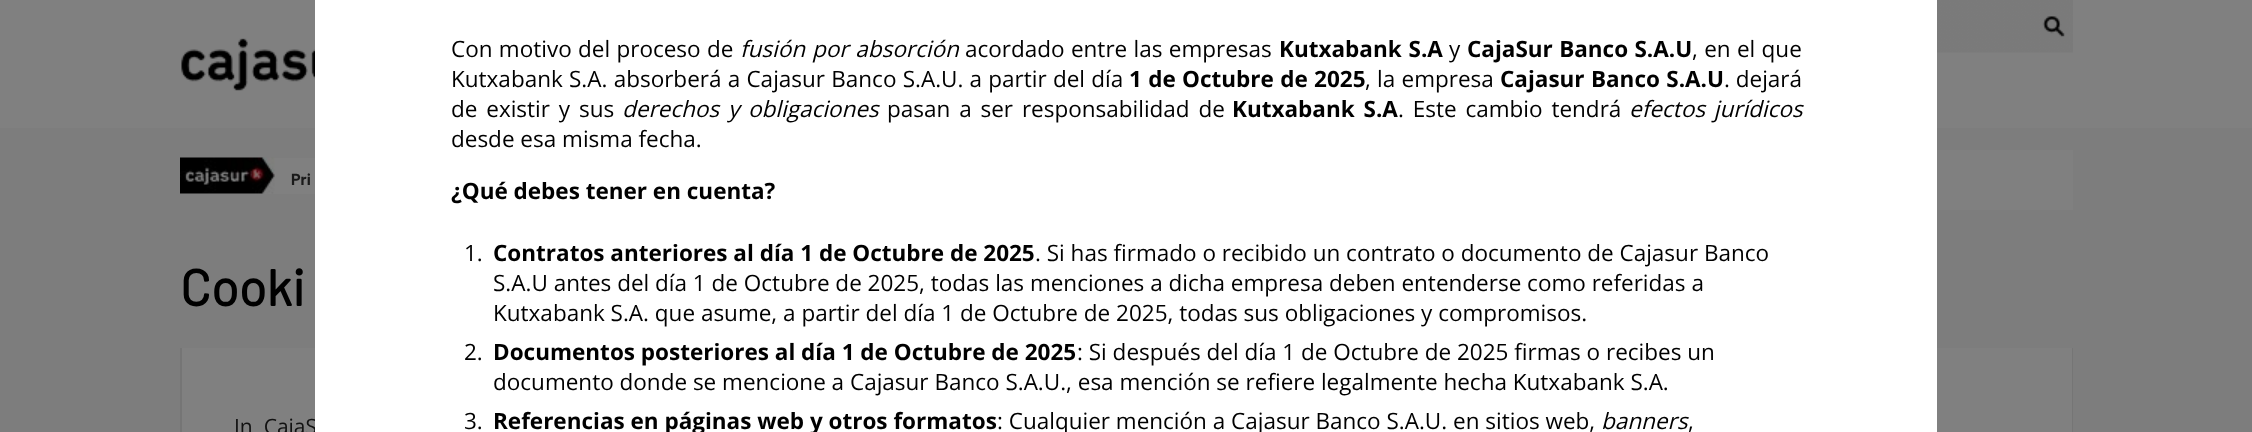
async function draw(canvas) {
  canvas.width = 2252
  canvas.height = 432
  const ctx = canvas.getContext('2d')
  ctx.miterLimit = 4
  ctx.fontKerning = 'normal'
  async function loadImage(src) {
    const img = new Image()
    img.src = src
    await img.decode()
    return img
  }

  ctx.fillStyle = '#7d7d7d'
  ctx.fillRect(0, 0, 2252, 432)
  ctx.fillStyle = '#808080'
  ctx.fillRect(0, 0, 2252, 128)
  ctx.drawImage(await loadImage('image0.png'), 1937, 0, 136, 53)
  ctx.drawImage(await loadImage('image1.png'), 2042, 16, 23, 21)
  ctx.drawImage(await loadImage('image2.png'), 181, 38, 134, 53)
  ctx.fillRect(180, 158, 135, 36)
  ctx.drawImage(await loadImage('image3.png'), 180, 157, 95, 37)
  ctx.font = 'bold 16px Barlow'
  ctx.fillStyle = '#1a1a1a'
  ctx.fillText('Pri', 291, 185)
  ctx.fillStyle = '#808080'
  ctx.fillRect(1937, 150, 136, 60)
  ctx.font = 'bold 51px "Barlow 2"'
  ctx.fillStyle = '#000'
  ctx.fillText('Cooki', 180, 306)
  ctx.fillStyle = '#808080'
  ctx.fillRect(182, 348, 1890, 84)
  ctx.fillStyle = '#757575'
  ctx.fillRect(2072, 348, 1, 84)
  ctx.fillRect(180, 348, 2, 84)
  ctx.font = '21px Open Sans'
  ctx.fillStyle = '#111'
  ctx.fillText('In  CajaS', 234, 434)
  ctx.fillStyle = '#fff'
  ctx.fillRect(315, 0, 1622, 432)
  ctx.wordSpacing = '0.5px'
  ctx.font = '22.5px Open Sans'
  ctx.fillStyle = '#000'
  ctx.fillText('Con motivo del proceso de', 451, 57)
  ctx.wordSpacing = '1px'
  ctx.font = 'italic 22.5px Open Sans'
  ctx.fillText('fusión por absorción', 740, 57)
  ctx.wordSpacing = '0.5px'
  ctx.font = '22.5px Open Sans'
  ctx.fillText('acordado entre las empresas', 965, 57)
  ctx.wordSpacing = '1px'
  ctx.font = 'bold 22.5px Open Sans'
  ctx.fillText('Kutxabank S.A', 1279, 57)
  ctx.wordSpacing = '0px'
  ctx.font = '22.5px Open Sans'
  ctx.fillText('y', 1449, 57)
  ctx.wordSpacing = '0.5px'
  ctx.font = 'bold 22.5px Open Sans'
  ctx.fillText('CajaSur Banco S.A.U', 1467, 57)
  ctx.font = '22.5px Open Sans'
  ctx.fillText(', en el que', 1692, 57)
  ctx.wordSpacing = '0.4px'
  ctx.fillText('Kutxabank S.A. absorberá a Cajasur Banco S.A.U. a partir del día', 451, 87)
  ctx.wordSpacing = '0.5px'
  ctx.font = 'bold 22.5px Open Sans'
  ctx.fillText('1 de Octubre de 2025', 1129, 87)
  ctx.wordSpacing = '0.4px'
  ctx.font = '22.5px Open Sans'
  ctx.fillText(', la empresa', 1365, 87)
  ctx.wordSpacing = '0.5px'
  ctx.font = 'bold 22.5px Open Sans'
  ctx.fillText('Cajasur Banco S.A.U', 1500, 87)
  ctx.wordSpacing = '0px'
  ctx.font = '22.5px Open Sans'
  ctx.fillText('. dejará', 1724, 87)
  ctx.wordSpacing = '3px'
  ctx.fillText('de existir y sus', 451, 117)
  ctx.font = 'italic 22.5px Open Sans'
  ctx.fillText('derechos y obligaciones', 622, 117)
  ctx.font = '22.5px Open Sans'
  ctx.fillText('pasan a ser responsabilidad de', 887, 117)
  ctx.font = 'bold 22.5px Open Sans'
  ctx.fillText('Kutxabank S.A', 1232, 117)
  ctx.font = '22.5px Open Sans'
  ctx.fillText('. Este cambio tendrá', 1398, 117)
  ctx.font = 'italic 22.5px Open Sans'
  ctx.fillText('efectos jurídicos', 1629, 117)
  ctx.wordSpacing = '0px'
  ctx.font = '22.5px Open Sans'
  ctx.fillText('desde esa misma fecha.', 451, 147)
  ctx.font = 'bold 22.5px Open Sans'
  ctx.fillText('¿Qué debes tener en cuenta?', 451, 199)
  ctx.font = '22.5px Open Sans'
  ctx.fillText('1.', 464, 261)
  ctx.font = 'bold 22.5px Open Sans'
  ctx.fillText('Contratos anteriores al día 1 de Octubre de 2025', 493, 261)
  ctx.font = '22.5px Open Sans'
  ctx.fillText('. Si has firmado o recibido un contrato o documento de Cajasur Banco', 1035, 261)
  ctx.fillText('S.A.U antes del día 1 de Octubre de 2025, todas las menciones a dicha empresa deben entenderse como referidas a', 493, 291)
  ctx.fillText('Kutxabank S.A. que asume, a partir del día 1 de Octubre de 2025, todas sus obligaciones y compromisos.', 493, 321)
  ctx.fillText('2.', 464, 360)
  ctx.font = 'bold 22.5px Open Sans'
  ctx.fillText('Documentos posteriores al día 1 de Octubre de 2025', 493, 360)
  ctx.font = '22.5px Open Sans'
  ctx.fillText(': Si después del día 1 de Octubre de 2025 firmas o recibes un', 1077, 360)
  ctx.fillText('documento donde se mencione a Cajasur Banco S.A.U., esa mención se refiere legalmente hecha Kutxabank S.A.', 493, 390)
  ctx.fillText('3.', 464, 429)
  ctx.font = 'bold 22.5px Open Sans'
  ctx.fillText('Referencias en páginas web y otros formatos', 493, 429)
  ctx.font = '22.5px Open Sans'
  ctx.fillText(': Cualquier mención a Cajasur Banco S.A.U. en sitios web,', 997, 429)
  ctx.font = 'italic 22.5px Open Sans'
  ctx.fillText('banners', 1601, 429)
  ctx.font = '22.5px Open Sans'
  ctx.fillText(',', 1688, 429)
}

draw(document.querySelector('canvas'))
